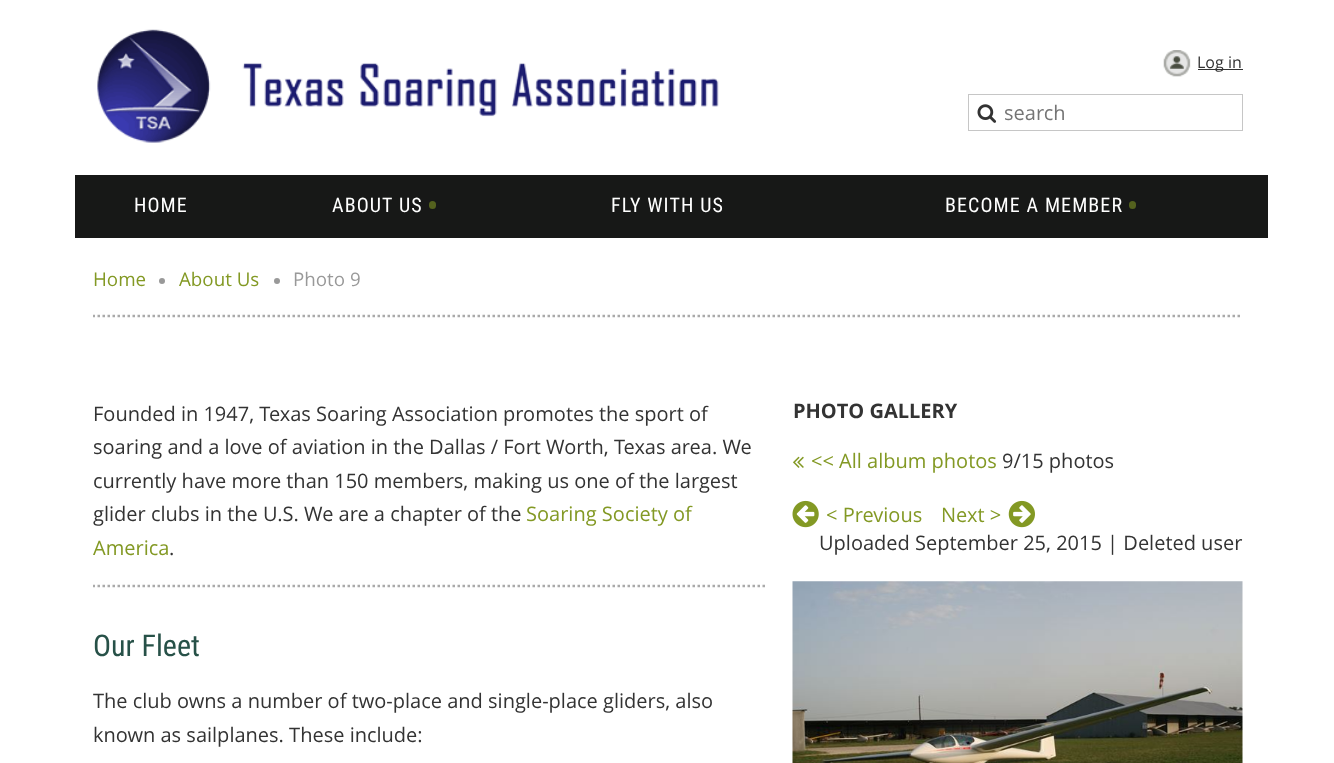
async function draw(canvas) {
  canvas.width = 1334
  canvas.height = 763
  const ctx = canvas.getContext('2d')
  ctx.miterLimit = 4
  ctx.fontKerning = 'normal'
  async function loadImage(src) {
    const img = new Image()
    img.src = src
    await img.decode()
    return img
  }

  ctx.fillStyle = '#fff'
  ctx.fillRect(0, 0, 1334, 763)
  ctx.drawImage(await loadImage('image0.png'), 97, 29, 622, 114)
  ctx.drawImage(await loadImage('image1.png'), 1163, 50, 28, 27)
  ctx.fillStyle = '#333'
  ctx.fillRect(1198, 69, 45, 1)
  ctx.font = '16px Open Sans'
  ctx.fillText('Log in', 1197, 68)
  ctx.strokeStyle = '#c6c6c6'
  ctx.strokeRect(968.5, 94.5, 274, 36)
  ctx.drawImage(await loadImage('image2.png'), 977, 104, 20, 19)
  ctx.font = '20px Open Sans'
  ctx.fillStyle = '#757575'
  ctx.fillText('search', 1004, 120)
  ctx.fillStyle = '#171817'
  ctx.fillRect(75, 175, 1193, 63)
  ctx.letterSpacing = '1.1px'
  ctx.font = '20px Roboto Condensed'
  ctx.fillStyle = '#fff'
  ctx.fillText('HOME', 134, 212)
  ctx.fillText('ABOUT US', 332, 212)
  ctx.fillStyle = '#54611e'
  ctx.beginPath()
  ctx.roundRect(429, 201, 7, 8, 3.5)
  ctx.fill()
  ctx.fillStyle = '#fff'
  ctx.fillText('FLY WITH US', 611, 212)
  ctx.fillText('BECOME A MEMBER', 945, 212)
  ctx.fillStyle = '#54611e'
  ctx.beginPath()
  ctx.roundRect(1129, 201, 7, 8, 3.5)
  ctx.fill()
  ctx.letterSpacing = '0px'
  ctx.font = '18.75px Open Sans'
  ctx.fillStyle = '#839924'
  ctx.fillText('Home', 93, 286)
  ctx.fillStyle = '#999'
  ctx.beginPath()
  ctx.arc(162, 281, 3, 0, 2 * Math.PI)
  ctx.fill()
  ctx.fillStyle = '#839924'
  ctx.fillText('About Us', 179, 286)
  ctx.fillStyle = '#999'
  ctx.beginPath()
  ctx.arc(277, 281, 3, 0, 2 * Math.PI)
  ctx.fill()
  ctx.fillText('Photo 9', 293, 286)
  ctx.save()
  ctx.beginPath()
  ctx.rect(93, 295, 1150, 78)
  ctx.clip()
  ctx.beginPath()
  ctx.moveTo(92.5, 316)
  ctx.lineTo(1242.5, 316)
  ctx.strokeStyle = '#aaa'
  ctx.lineWidth = 2.5
  ctx.setLineDash([2.5, 2.5])
  ctx.stroke()
  ctx.restore()
  ctx.font = '20px Open Sans'
  ctx.fillStyle = '#333'
  ctx.fillText('Founded in 1947, Texas Soaring Association promotes the sport of', 93, 421)
  ctx.fillText('soaring and a love of aviation in the Dallas / Fort Worth, Texas area. We', 93, 454)
  ctx.fillText('currently have more than 150 members, making us one of the largest', 93, 488)
  ctx.fillText('glider clubs in the U.S. We are a chapter of the', 93, 521)
  ctx.fillStyle = '#839924'
  ctx.fillText('Soaring Society of', 526, 521)
  ctx.fillText('America', 93, 555)
  ctx.fillStyle = '#333'
  ctx.fillText('.', 169, 555)
  ctx.save()
  ctx.beginPath()
  ctx.rect(93, 398, 675, 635)
  ctx.clip()
  ctx.beginPath()
  ctx.moveTo(92.5, 586)
  ctx.lineTo(767.5, 586)
  ctx.strokeStyle = '#aaa'
  ctx.lineWidth = 2.5
  ctx.setLineDash([2.5, 2.5])
  ctx.stroke()
  ctx.restore()
  ctx.font = '30px Roboto Condensed'
  ctx.fillStyle = '#275148'
  ctx.fillText('Our Fleet', 93, 656)
  ctx.save()
  ctx.beginPath()
  ctx.rect(93, 398, 675, 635)
  ctx.clip()
  ctx.font = '20px Open Sans'
  ctx.fillStyle = '#333'
  ctx.fillText('The club owns a number of two-place and single-place gliders, also', 93, 708)
  ctx.restore()
  ctx.font = '20px Open Sans'
  ctx.fillStyle = '#333'
  ctx.fillText('known as sailplanes. These include:', 93, 742)
  ctx.font = 'bold 20px Open Sans'
  ctx.fillText('PHOTO GALLERY', 793, 418)
  ctx.drawImage(await loadImage('image3.png'), 793, 456, 11, 12)
  ctx.font = '20px Open Sans'
  ctx.fillStyle = '#839924'
  ctx.fillText('<< All album photos', 811, 468)
  ctx.fillStyle = '#333'
  ctx.fillText('9/15 photos', 1002, 468)
  ctx.drawImage(await loadImage('image4.png'), 792, 500, 27, 28)
  ctx.fillStyle = '#839924'
  ctx.fillText('< Previous', 826, 522)
  ctx.fillText('Next >', 941, 522)
  ctx.drawImage(await loadImage('image5.png'), 1008, 500, 27, 28)
  ctx.fillStyle = '#333'
  ctx.fillText('Uploaded September 25, 2015 | Deleted user', 819, 550)
  ctx.drawImage(await loadImage('image6.png'), 792, 581, 451, 182)
}

draw(document.querySelector('canvas'))
